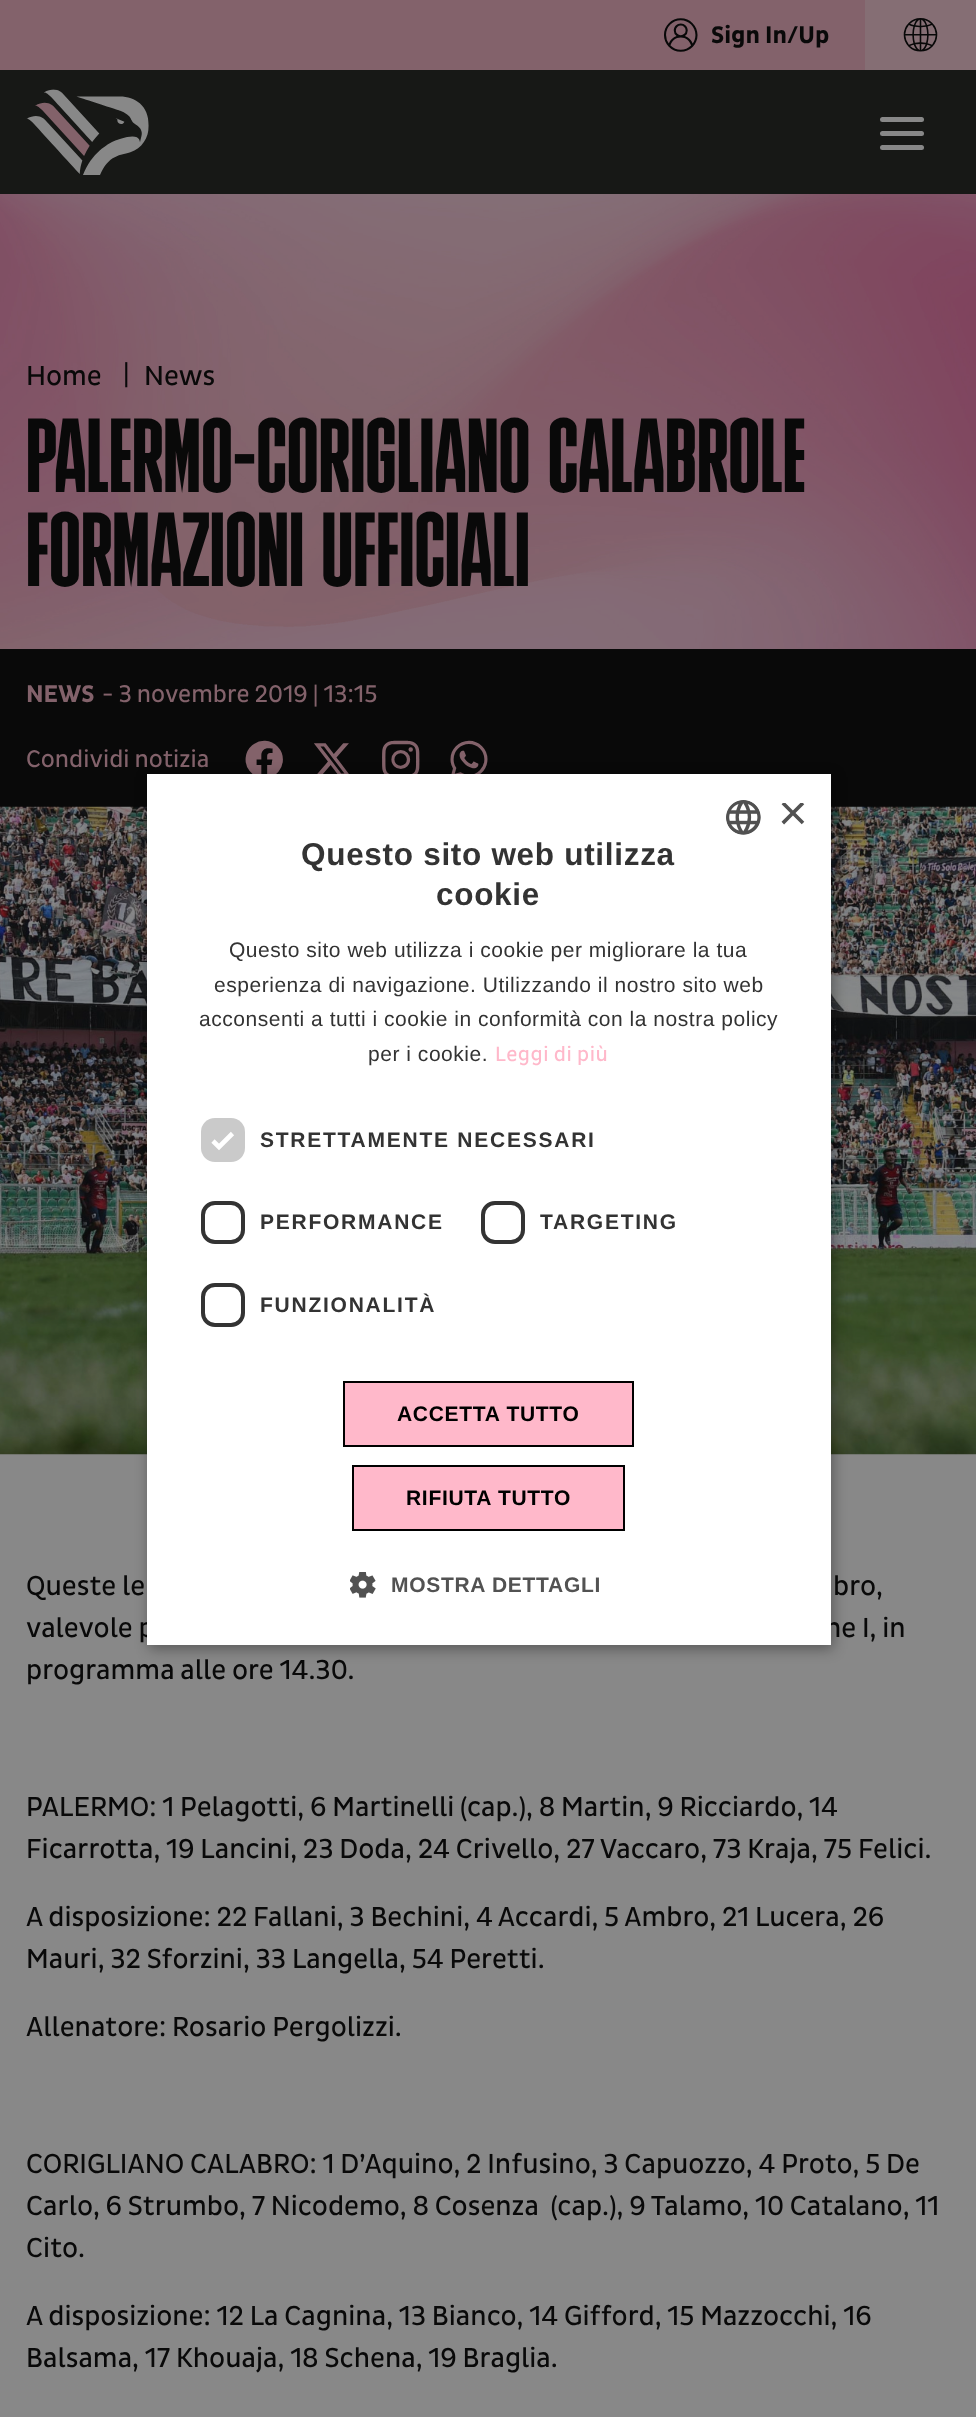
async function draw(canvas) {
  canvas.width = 976
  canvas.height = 2417
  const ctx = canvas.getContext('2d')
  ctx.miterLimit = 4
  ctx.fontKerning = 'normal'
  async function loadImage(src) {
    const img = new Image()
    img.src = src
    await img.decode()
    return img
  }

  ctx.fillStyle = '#888'
  ctx.fillRect(0, 0, 976, 2417)
  ctx.fillStyle = '#83626b'
  ctx.fillRect(0, 0, 865, 70)
  ctx.drawImage(await loadImage('image0.png'), 664, 18, 34, 34)
  ctx.font = 'bold 24.5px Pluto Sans'
  ctx.fillStyle = '#090909'
  ctx.fillText('Sign In/Up', 711, 43)
  ctx.fillStyle = '#856e74'
  ctx.fillRect(865, 0, 111, 70)
  ctx.drawImage(await loadImage('image1.png'), 903, 18, 35, 34)
  ctx.fillStyle = '#171816'
  ctx.fillRect(0, 70, 976, 124)
  ctx.drawImage(await loadImage('image2.png'), 26, 89, 123, 86)
  ctx.fillStyle = '#888'
  ctx.beginPath()
  ctx.roundRect(880, 117, 44, 5, 2.5)
  ctx.fill()
  ctx.beginPath()
  ctx.roundRect(880, 131, 44, 5, 2.5)
  ctx.fill()
  ctx.beginPath()
  ctx.roundRect(880, 145, 44, 5, 2.5)
  ctx.fill()
  ctx.drawImage(await loadImage('image3.png'), 0, 194, 976, 455)
  ctx.font = '28px Pluto Sans'
  ctx.fillStyle = '#090909'
  ctx.fillText('Home', 26, 385)
  ctx.fillText('|', 123, 382)
  ctx.fillText('News', 144, 385)
  ctx.font = '105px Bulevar'
  ctx.fillText('PALERMO-CORIGLIANO CALABROLE', 26, 492)
  ctx.fillText('FORMAZIONI UFFICIALI', 26, 586)
  ctx.fillRect(0, 649, 976, 158)
  ctx.font = 'bold 24.5px Pluto Sans'
  ctx.fillStyle = '#83626b'
  ctx.fillText('NEWS', 26, 702)
  ctx.font = '24.5px Pluto Sans'
  ctx.fillText('- 3 novembre 2019 | 13:15', 102, 702)
  ctx.fillText('Condividi notizia', 26, 767)
  ctx.drawImage(await loadImage('image4.png'), 245, 740, 38, 34)
  ctx.drawImage(await loadImage('image5.png'), 314, 743, 35, 31)
  ctx.drawImage(await loadImage('image6.png'), 382, 740, 38, 34)
  ctx.drawImage(await loadImage('image7.png'), 450, 740, 38, 34)
  ctx.drawImage(await loadImage('image8.png'), 0, 806, 976, 649)
  ctx.font = '28px Pluto Sans'
  ctx.fillStyle = '#090909'
  ctx.fillText('Queste le', 26, 1595)
  ctx.fillText('bro,', 833, 1595)
  ctx.fillText('valevole p', 26, 1637)
  ctx.fillText('ne I, in', 825, 1637)
  ctx.fillText('programma alle ore 14.30.', 26, 1679)
  ctx.fillText('PALERMO: 1 Pelagotti, 6 Martinelli (cap.), 8 Martin, 9 Ricciardo, 14', 26, 1816)
  ctx.fillText('Ficarrotta, 19 Lancini, 23 Doda, 24 Crivello, 27 Vaccaro, 73 Kraja, 75 Felici.', 26, 1858)
  ctx.fillText('A disposizione: 22 Fallani, 3 Bechini, 4 Accardi, 5 Ambro, 21 Lucera, 26', 26, 1926)
  ctx.fillText('Mauri, 32 Sforzini, 33 Langella, 54 Peretti.', 26, 1968)
  ctx.fillText('Allenatore: Rosario Pergolizzi.', 26, 2036)
  ctx.fillText('CORIGLIANO CALABRO: 1 D’Aquino, 2 Infusino, 3 Capuozzo, 4 Proto, 5 De', 26, 2173)
  ctx.fillText('Carlo, 6 Strumbo, 7 Nicodemo, 8 Cosenza  (cap.), 9 Talamo, 10 Catalano, 11', 26, 2215)
  ctx.fillText('Cito.', 26, 2257)
  ctx.fillText('A disposizione: 12 La Cagnina, 13 Bianco, 14 Gifford, 15 Mazzocchi, 16', 26, 2325)
  ctx.fillText('Balsama, 17 Khouaja, 18 Schena, 19 Braglia.', 26, 2367)
  ctx.fillStyle = '#00000059'
  ctx.filter = 'blur(7px)'
  ctx.beginPath()
  ctx.rect(149, 777, 684, 872)
  ctx.fill()
  ctx.filter = 'none'
  ctx.fillStyle = '#fff'
  ctx.fillRect(147, 774, 684, 871)
  ctx.drawImage(await loadImage('image9.png'), 726, 800, 35, 35)
  ctx.save()
  ctx.beginPath()
  ctx.rect(779, 803, 26, 27)
  ctx.clip()
  ctx.font = '51px Liberation Sans'
  ctx.fillStyle = '#525252'
  ctx.fillText('×', 778, 830)
  ctx.restore()
  ctx.letterSpacing = '0.7px'
  ctx.font = 'bold 31.5px Liberation Sans'
  ctx.fillStyle = '#333'
  ctx.fillText('Questo sito web utilizza', 301, 865)
  ctx.fillText('cookie', 436, 905)
  ctx.letterSpacing = '0.53px'
  ctx.font = '21px Liberation Sans'
  ctx.fillText('Questo sito web utilizza i cookie per migliorare la tua', 229, 957)
  ctx.fillText('esperienza di navigazione. Utilizzando il nostro sito web', 214, 992)
  ctx.fillText('acconsenti a tutti i cookie in conformità con la nostra policy', 199, 1026)
  ctx.fillText('per i cookie.', 368, 1061)
  ctx.font = '21px Pluto Sans'
  ctx.fillStyle = '#ffb8ca'
  ctx.fillText('Leggi di più', 495, 1061)
  ctx.fillStyle = '#cacaca'
  ctx.beginPath()
  ctx.roundRect(201, 1118, 44, 44, 14)
  ctx.fill()
  ctx.beginPath()
  ctx.moveTo(213, 1141)
  ctx.lineTo(219, 1147)
  ctx.lineTo(232.5, 1133.5)
  ctx.strokeStyle = '#fff'
  ctx.lineWidth = 4.6
  ctx.stroke()
  ctx.letterSpacing = '1.75px'
  ctx.font = 'bold 21px Liberation Sans'
  ctx.fillStyle = '#333'
  ctx.fillText('STRETTAMENTE NECESSARI', 260, 1147)
  ctx.beginPath()
  ctx.roundRect(203, 1203, 40, 39, 12)
  ctx.strokeStyle = '#333'
  ctx.lineWidth = 4
  ctx.stroke()
  ctx.fillText('PERFORMANCE', 260, 1229)
  ctx.beginPath()
  ctx.roundRect(483, 1203, 40, 39, 12)
  ctx.stroke()
  ctx.fillText('TARGETING', 540, 1229)
  ctx.beginPath()
  ctx.roundRect(203, 1285, 40, 40, 12)
  ctx.stroke()
  ctx.fillText('FUNZIONALITÀ', 260, 1312)
  ctx.fillStyle = '#ffb8ca'
  ctx.beginPath()
  ctx.rect(344, 1382, 289, 64)
  ctx.fill()
  ctx.strokeStyle = '#000'
  ctx.lineWidth = 2
  ctx.stroke()
  ctx.letterSpacing = '0.7px'
  ctx.fillStyle = '#000'
  ctx.fillText('ACCETTA TUTTO', 397, 1421)
  ctx.fillStyle = '#ffb8ca'
  ctx.beginPath()
  ctx.rect(353, 1466, 271, 64)
  ctx.fill()
  ctx.stroke()
  ctx.fillStyle = '#000'
  ctx.fillText('RIFIUTA TUTTO', 406, 1505)
  ctx.drawImage(await loadImage('image10.png'), 350, 1572, 26, 26)
  ctx.fillStyle = '#525252'
  ctx.fillText('MOSTRA DETTAGLI', 391, 1592)
}

draw(document.querySelector('canvas'))
